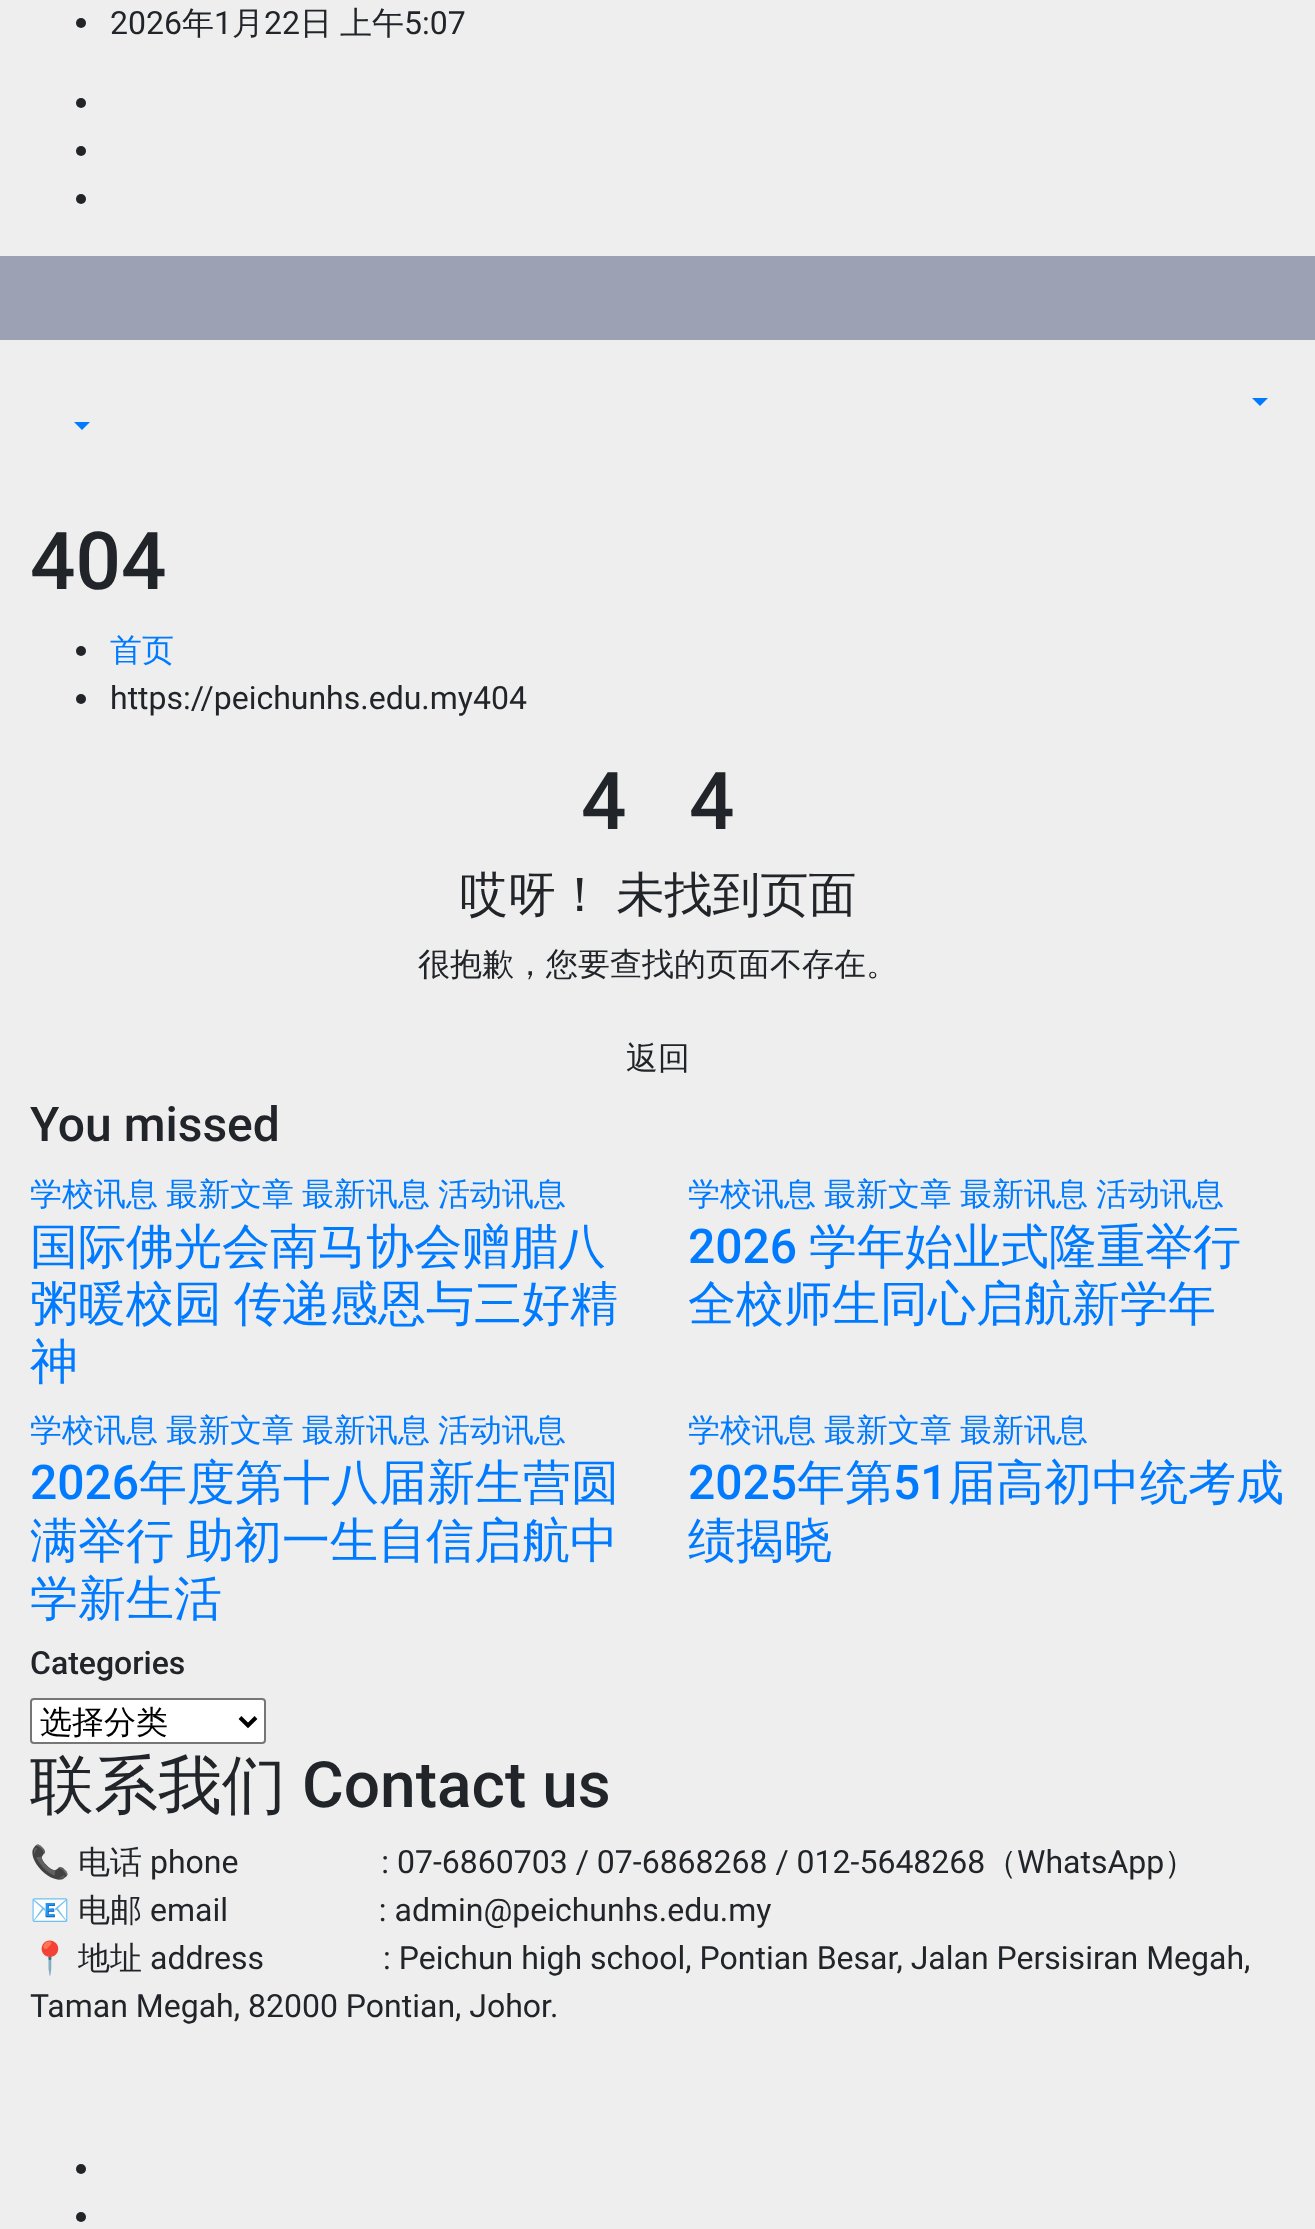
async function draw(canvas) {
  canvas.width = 1315
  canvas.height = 2229
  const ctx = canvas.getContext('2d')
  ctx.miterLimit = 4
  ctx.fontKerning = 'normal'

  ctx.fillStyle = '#eee'
  ctx.fillRect(0, 0, 1315, 2229)
  ctx.fillStyle = '#212529'
  ctx.beginPath()
  ctx.arc(81, 23, 5, 0, 2 * Math.PI)
  ctx.fill()
  ctx.font = '32px Roboto'
  ctx.fillText('2026', 110, 34)
  ctx.font = '500 32px WenQuanYi Zen Hei'
  ctx.fillText('年', 182, 34)
  ctx.font = '32px Roboto'
  ctx.fillText('1', 214, 34)
  ctx.font = '500 32px WenQuanYi Zen Hei'
  ctx.fillText('月', 232, 34)
  ctx.font = '32px Roboto'
  ctx.fillText('22', 264, 34)
  ctx.font = '500 32px WenQuanYi Zen Hei'
  ctx.fillText('日', 300, 34)
  ctx.fillText('上午', 340, 34)
  ctx.font = '32px Roboto'
  ctx.fillText('5:07', 404, 34)
  ctx.beginPath()
  ctx.arc(81, 103, 5, 0, 2 * Math.PI)
  ctx.fill()
  ctx.beginPath()
  ctx.arc(81, 151, 5, 0, 2 * Math.PI)
  ctx.fill()
  ctx.beginPath()
  ctx.arc(81, 199, 5, 0, 2 * Math.PI)
  ctx.fill()
  ctx.fillStyle = '#9ca2b3'
  ctx.fillRect(0, 256, 1315, 84)
  ctx.fillStyle = '#007bff'
  ctx.beginPath()
  ctx.moveTo(1252, 398)
  ctx.lineTo(1268, 398)
  ctx.lineTo(1260, 406)
  ctx.closePath()
  ctx.fill()
  ctx.beginPath()
  ctx.moveTo(74, 422)
  ctx.lineTo(90, 422)
  ctx.lineTo(82, 430)
  ctx.closePath()
  ctx.fill()
  ctx.font = '500 80px Roboto'
  ctx.fillStyle = '#212529'
  ctx.fillText('404', 30, 589)
  ctx.beginPath()
  ctx.arc(81, 651, 5, 0, 2 * Math.PI)
  ctx.fill()
  ctx.font = '500 32px WenQuanYi Zen Hei'
  ctx.fillStyle = '#007bff'
  ctx.fillText('首页', 110, 661)
  ctx.fillStyle = '#212529'
  ctx.beginPath()
  ctx.arc(81, 699, 5, 0, 2 * Math.PI)
  ctx.fill()
  ctx.font = '32px Roboto'
  ctx.fillText('https://peichunhs.edu.my404', 110, 709)
  ctx.font = '500 80px Roboto'
  ctx.fillText('4', 581, 829)
  ctx.fillText('4', 689, 829)
  ctx.wordSpacing = '-2px'
  ctx.font = '500 48px WenQuanYi Zen Hei'
  ctx.fillText('哎呀！ 未找到页面', 460, 911)
  ctx.wordSpacing = '0px'
  ctx.font = '500 32px WenQuanYi Zen Hei'
  ctx.fillText('很抱歉，您要查找的页面不存在。', 418, 975)
  ctx.fillText('返回', 626, 1069)
  ctx.font = '500 48px Roboto'
  ctx.fillText('You missed', 30, 1141)
  ctx.font = '500 32px WenQuanYi Zen Hei'
  ctx.fillStyle = '#007bff'
  ctx.fillText('学校讯息', 30, 1205)
  ctx.fillText('最新文章', 166, 1205)
  ctx.fillText('最新讯息', 302, 1205)
  ctx.fillText('活动讯息', 438, 1205)
  ctx.font = '500 48px WenQuanYi Zen Hei'
  ctx.fillText('国际佛光会南马协会赠腊八', 30, 1263)
  ctx.fillText('粥暖校园', 30, 1320)
  ctx.fillText('传递感恩与三好精', 234, 1320)
  ctx.fillText('神', 30, 1378)
  ctx.font = '500 32px WenQuanYi Zen Hei'
  ctx.fillText('学校讯息', 688, 1205)
  ctx.fillText('最新文章', 824, 1205)
  ctx.fillText('最新讯息', 960, 1205)
  ctx.fillText('活动讯息', 1096, 1205)
  ctx.font = '500 48px Roboto'
  ctx.fillText('2026', 688, 1263)
  ctx.font = '500 48px WenQuanYi Zen Hei'
  ctx.fillText('学年始业式隆重举行', 809, 1263)
  ctx.fillText('全校师生同心启航新学年', 688, 1320)
  ctx.font = '500 32px WenQuanYi Zen Hei'
  ctx.fillText('学校讯息', 30, 1441)
  ctx.fillText('最新文章', 166, 1441)
  ctx.fillText('最新讯息', 302, 1441)
  ctx.fillText('活动讯息', 438, 1441)
  ctx.font = '500 48px Roboto'
  ctx.fillText('2026', 30, 1499)
  ctx.font = '500 48px WenQuanYi Zen Hei'
  ctx.fillText('年度第十八届新生营圆', 139, 1499)
  ctx.fillText('满举行', 30, 1557)
  ctx.fillText('助初一生自信启航中', 186, 1557)
  ctx.fillText('学新生活', 30, 1615)
  ctx.font = '500 32px WenQuanYi Zen Hei'
  ctx.fillText('学校讯息', 688, 1441)
  ctx.fillText('最新文章', 824, 1441)
  ctx.fillText('最新讯息', 960, 1441)
  ctx.font = '500 48px Roboto'
  ctx.fillText('2025', 688, 1499)
  ctx.font = '500 48px WenQuanYi Zen Hei'
  ctx.fillText('年第', 797, 1499)
  ctx.font = '500 48px Roboto'
  ctx.fillText('51', 893, 1499)
  ctx.font = '500 48px WenQuanYi Zen Hei'
  ctx.fillText('届高初中统考成', 948, 1499)
  ctx.fillText('绩揭晓', 688, 1557)
  ctx.font = '500 32px Roboto'
  ctx.fillStyle = '#212529'
  ctx.fillText('Categories', 30, 1674)
  ctx.fillStyle = '#fff'
  ctx.beginPath()
  ctx.roundRect(31, 1699, 234, 44, 3)
  ctx.fill()
  ctx.strokeStyle = '#767676'
  ctx.lineWidth = 2
  ctx.stroke()
  ctx.beginPath()
  ctx.moveTo(240, 1717.5)
  ctx.lineTo(248, 1725.5)
  ctx.lineTo(256, 1717.5)
  ctx.strokeStyle = '#000'
  ctx.lineWidth = 4
  ctx.stroke()
  ctx.font = '500 32px WenQuanYi Zen Hei'
  ctx.fillStyle = '#000'
  ctx.fillText('选择分类', 40, 1733)
  ctx.font = '500 64px WenQuanYi Zen Hei'
  ctx.fillStyle = '#212529'
  ctx.fillText('联系我们', 30, 1807)
  ctx.font = '500 64px Roboto'
  ctx.fillText('Contact us', 302, 1807)
  ctx.font = '32px Noto Color Emoji'
  ctx.fillText('📞', 30, 1873)
  ctx.font = '500 32px WenQuanYi Zen Hei'
  ctx.fillText('电话', 78, 1873)
  ctx.font = '32px Roboto'
  ctx.fillText('phone                  : 07-6860703 / 07-6868268 / 012-5648268', 150, 1873)
  ctx.font = '500 32px WenQuanYi Zen Hei'
  ctx.fillText('（', 985, 1873)
  ctx.font = '32px Roboto'
  ctx.fillText('WhatsApp', 1017, 1873)
  ctx.font = '500 32px WenQuanYi Zen Hei'
  ctx.fillText('）', 1164, 1873)
  ctx.font = '32px Noto Color Emoji'
  ctx.fillText('📧', 30, 1921)
  ctx.font = '500 32px WenQuanYi Zen Hei'
  ctx.fillText('电邮', 78, 1921)
  ctx.font = '32px Roboto'
  ctx.fillText('email                   : admin@peichunhs.edu.my', 150, 1921)
  ctx.font = '32px Noto Color Emoji'
  ctx.fillText('📍', 30, 1969)
  ctx.font = '500 32px WenQuanYi Zen Hei'
  ctx.fillText('地址', 78, 1969)
  ctx.font = '32px Roboto'
  ctx.fillText('address               : Peichun high school, Pontian Besar, Jalan Persisiran Megah,', 150, 1969)
  ctx.fillText('Taman Megah, 82000 Pontian, Johor.', 30, 2017)
  ctx.beginPath()
  ctx.arc(81, 2169, 5, 0, 2 * Math.PI)
  ctx.fill()
  ctx.beginPath()
  ctx.arc(81, 2217, 5, 0, 2 * Math.PI)
  ctx.fill()
}

draw(document.querySelector('canvas'))
